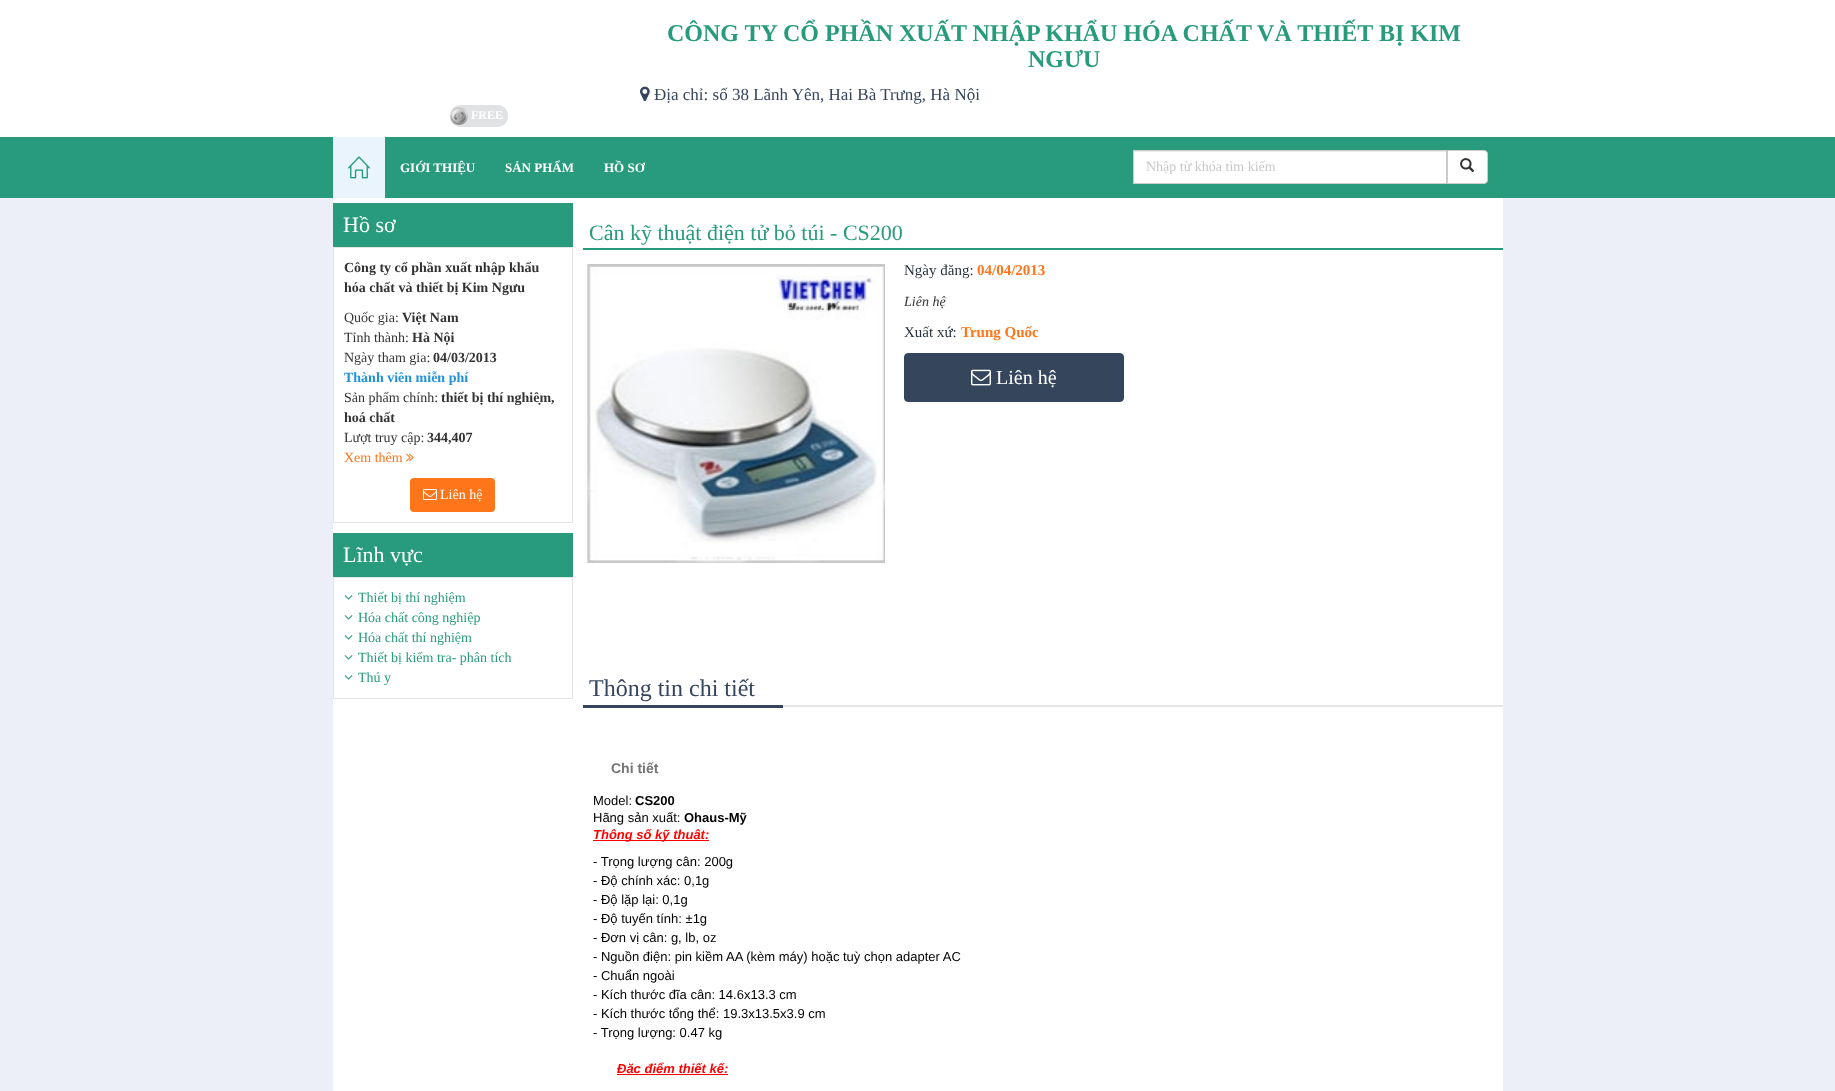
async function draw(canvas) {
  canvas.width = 1835
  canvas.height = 1091
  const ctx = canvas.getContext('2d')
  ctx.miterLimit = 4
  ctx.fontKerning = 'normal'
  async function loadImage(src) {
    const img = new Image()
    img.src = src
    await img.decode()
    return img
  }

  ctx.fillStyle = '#eceff7'
  ctx.fillRect(0, 0, 1835, 1091)
  ctx.fillStyle = '#fff'
  ctx.fillRect(0, 0, 1835, 137)
  ctx.font = 'bold 24px Liberation Serif'
  ctx.fillStyle = '#289b7c'
  ctx.fillText('CÔNG TY CỔ PHẦN XUẤT NHẬP KHẨU HÓA CHẤT VÀ THIẾT BỊ KIM', 667, 41)
  ctx.fillText('NGƯU', 1028, 67)
  ctx.drawImage(await loadImage('image0.png'), 640, 86, 10, 16)
  ctx.font = '17px Liberation Serif'
  ctx.fillStyle = '#35455c'
  ctx.fillText('Địa chỉ: số 38 Lãnh Yên, Hai Bà Trưng, Hà Nội', 654, 100)
  ctx.fillStyle = '#e0e2e4'
  ctx.beginPath()
  ctx.roundRect(450, 105, 58, 22, 10)
  ctx.fill()
  ctx.drawImage(await loadImage('image1.png'), 450, 107, 18, 18)
  ctx.font = 'bold 12px Liberation Serif'
  ctx.fillStyle = '#fff'
  ctx.fillText('FREE', 471, 119)
  ctx.fillStyle = '#289b7c'
  ctx.fillRect(0, 137, 1835, 61)
  ctx.fillStyle = '#e9f4fd'
  ctx.fillRect(333, 137, 52, 61)
  ctx.drawImage(await loadImage('image2.png'), 348, 156, 22, 23)
  ctx.font = 'bold 13px Liberation Serif'
  ctx.fillStyle = '#fff'
  ctx.fillText('GIỚI THIỆU', 400, 172)
  ctx.fillText('SẢN PHẨM', 505, 172)
  ctx.fillText('HỒ SƠ', 604, 172)
  ctx.fillRect(1134, 152, 312, 31)
  ctx.fillStyle = '#ececec'
  ctx.fillRect(1134, 151, 312, 1)
  ctx.strokeStyle = '#ccc'
  ctx.strokeRect(1133.5, 150.5, 313, 33)
  ctx.font = '14px Liberation Serif'
  ctx.fillStyle = '#c8c8c8'
  ctx.fillText('Nhập từ khóa tìm kiếm', 1146, 171)
  ctx.fillStyle = '#fff'
  ctx.beginPath()
  ctx.roundRect(1447.5, 150.5, 40, 33, [0, 3.5, 3.5, 0])
  ctx.fill()
  ctx.stroke()
  ctx.drawImage(await loadImage('image3.png'), 1460, 158, 15, 14)
  ctx.fillRect(333, 198, 1170, 893)
  ctx.fillStyle = '#289b7c'
  ctx.fillRect(333, 203, 240, 44)
  ctx.font = '22px Liberation Serif'
  ctx.fillStyle = '#fff'
  ctx.fillText('Hồ sơ', 343, 232)
  ctx.strokeStyle = '#e5e5e5'
  ctx.strokeRect(333.5, 247.5, 239, 275)
  ctx.font = 'bold 14px Liberation Serif'
  ctx.fillStyle = '#333'
  ctx.fillText('Công ty cổ phần xuất nhập khẩu', 344, 272)
  ctx.fillText('hóa chất và thiết bị Kim Ngưu', 344, 292)
  ctx.font = '14px Liberation Serif'
  ctx.fillText('Quốc gia:', 344, 322)
  ctx.font = 'bold 14px Liberation Serif'
  ctx.fillText('Việt Nam', 402, 322)
  ctx.font = '14px Liberation Serif'
  ctx.fillText('Tỉnh thành:', 344, 342)
  ctx.font = 'bold 14px Liberation Serif'
  ctx.fillText('Hà Nội', 412, 342)
  ctx.font = '14px Liberation Serif'
  ctx.fillText('Ngày tham gia:', 344, 362)
  ctx.font = 'bold 14px Liberation Serif'
  ctx.fillText('04/03/2013', 433, 362)
  ctx.fillStyle = '#2192d9'
  ctx.fillText('Thành viên miễn phí', 344, 382)
  ctx.font = '14px Liberation Serif'
  ctx.fillStyle = '#333'
  ctx.fillText('Sản phẩm chính:', 344, 402)
  ctx.font = 'bold 14px Liberation Serif'
  ctx.fillText('thiết bị thí nghiệm,', 441, 402)
  ctx.fillText('hoá chất', 344, 422)
  ctx.font = '14px Liberation Serif'
  ctx.fillText('Lượt truy cập:', 344, 442)
  ctx.font = 'bold 14px Liberation Serif'
  ctx.fillText('344,407', 427, 442)
  ctx.font = '14px Liberation Serif'
  ctx.fillStyle = '#ff7519'
  ctx.fillText('Xem thêm', 344, 462)
  ctx.drawImage(await loadImage('image4.png'), 406, 453, 8, 9)
  ctx.beginPath()
  ctx.roundRect(410, 478, 85, 34, 4)
  ctx.fill()
  ctx.drawImage(await loadImage('image5.png'), 423, 489, 14, 11)
  ctx.fillStyle = '#fff'
  ctx.fillText('Liên hệ', 440, 499)
  ctx.fillStyle = '#289b7c'
  ctx.fillRect(333, 533, 240, 44)
  ctx.font = '22px Liberation Serif'
  ctx.fillStyle = '#fff'
  ctx.fillText('Lĩnh vực', 343, 562)
  ctx.strokeRect(333.5, 577.5, 239, 121)
  ctx.drawImage(await loadImage('image6.png'), 344, 595, 9, 5)
  ctx.font = '14px Liberation Serif'
  ctx.fillStyle = '#289b7c'
  ctx.fillText('Thiết bị thí nghiệm', 358, 602)
  ctx.drawImage(await loadImage('image6.png'), 344, 615, 9, 5)
  ctx.fillText('Hóa chất công nghiệp', 358, 622)
  ctx.drawImage(await loadImage('image6.png'), 344, 635, 9, 5)
  ctx.fillText('Hóa chất thí nghiệm', 358, 642)
  ctx.drawImage(await loadImage('image6.png'), 344, 655, 9, 5)
  ctx.fillText('Thiết bị kiểm tra- phân tích', 358, 662)
  ctx.drawImage(await loadImage('image6.png'), 344, 675, 9, 5)
  ctx.fillText('Thú y', 358, 682)
  ctx.fillRect(583, 248, 920, 2)
  ctx.font = '22px Liberation Serif'
  ctx.fillText('Cân kỹ thuật điện tử bỏ túi - CS200', 589, 240)
  ctx.drawImage(await loadImage('image7.png'), 587, 264, 298, 299)
  ctx.font = '15px Liberation Serif'
  ctx.fillStyle = '#283240'
  ctx.fillText('Ngày đăng:', 904, 275)
  ctx.font = 'bold 15px Liberation Serif'
  ctx.fillStyle = '#ff7519'
  ctx.fillText('04/04/2013', 977, 275)
  ctx.font = 'italic 14px Liberation Serif'
  ctx.fillStyle = '#333'
  ctx.fillText('Liên hệ', 904, 306)
  ctx.font = '15px Liberation Serif'
  ctx.fillStyle = '#283240'
  ctx.fillText('Xuất xứ:', 904, 337)
  ctx.font = 'bold 15px Liberation Serif'
  ctx.fillStyle = '#ff7519'
  ctx.fillText('Trung Quốc', 961, 337)
  ctx.fillStyle = '#35455c'
  ctx.beginPath()
  ctx.roundRect(904.5, 353.5, 219, 48, 3.5)
  ctx.fill()
  ctx.strokeStyle = '#35455c'
  ctx.stroke()
  ctx.drawImage(await loadImage('image8.png'), 971, 369, 20, 17)
  ctx.font = '20px Liberation Serif'
  ctx.fillStyle = '#fff'
  ctx.fillText('Liên hệ', 996, 384)
  ctx.fillStyle = '#e5e5e5'
  ctx.fillRect(783, 705, 720, 2)
  ctx.font = '24px Liberation Serif'
  ctx.fillStyle = '#35455c'
  ctx.fillText('Thông tin chi tiết', 589, 696)
  ctx.fillRect(583, 705, 200, 3)
  ctx.font = 'bold 14px Liberation Sans'
  ctx.fillStyle = '#747474'
  ctx.fillText('Chi tiết', 611, 773)
  ctx.font = '13px Liberation Sans'
  ctx.fillStyle = '#000'
  ctx.fillText('Model:', 593, 805)
  ctx.font = 'bold 13px Liberation Sans'
  ctx.fillText('CS200', 635, 805)
  ctx.font = '13px Liberation Sans'
  ctx.fillText('Hãng sản xuất:', 593, 822)
  ctx.font = 'bold 13px Liberation Sans'
  ctx.fillText('Ohaus-Mỹ', 684, 822)
  ctx.fillStyle = '#f00'
  ctx.fillRect(593, 840, 116, 1)
  ctx.font = 'italic bold 13px Liberation Sans'
  ctx.fillText('Thông số kỹ thuật:', 593, 839)
  ctx.font = '13px Liberation Sans'
  ctx.fillStyle = '#000'
  ctx.fillText('- Trọng lượng cân: 200g', 593, 866)
  ctx.fillText('- Độ chính xác: 0,1g', 593, 885)
  ctx.fillText('- Độ lặp lại: 0,1g', 593, 904)
  ctx.fillText('- Độ tuyến tính: ±1g', 593, 923)
  ctx.fillText('- Đơn vị cân: g, lb, oz', 593, 942)
  ctx.fillText('- Nguồn điện: pin kiềm AA (kèm máy) hoặc tuỳ chọn adapter AC', 593, 961)
  ctx.fillText('- Chuẩn ngoài', 593, 980)
  ctx.fillText('- Kích thước đĩa cân: 14.6x13.3 cm', 593, 999)
  ctx.fillText('- Kích thước tổng thể: 19.3x13.5x3.9 cm', 593, 1018)
  ctx.fillText('- Trọng lượng: 0.47 kg', 593, 1037)
  ctx.fillStyle = '#f00'
  ctx.fillRect(617, 1074, 111, 1)
  ctx.font = 'italic bold 13px Liberation Sans'
  ctx.fillText('Đặc điểm thiết kế:', 617, 1073)
}

draw(document.querySelector('canvas'))
